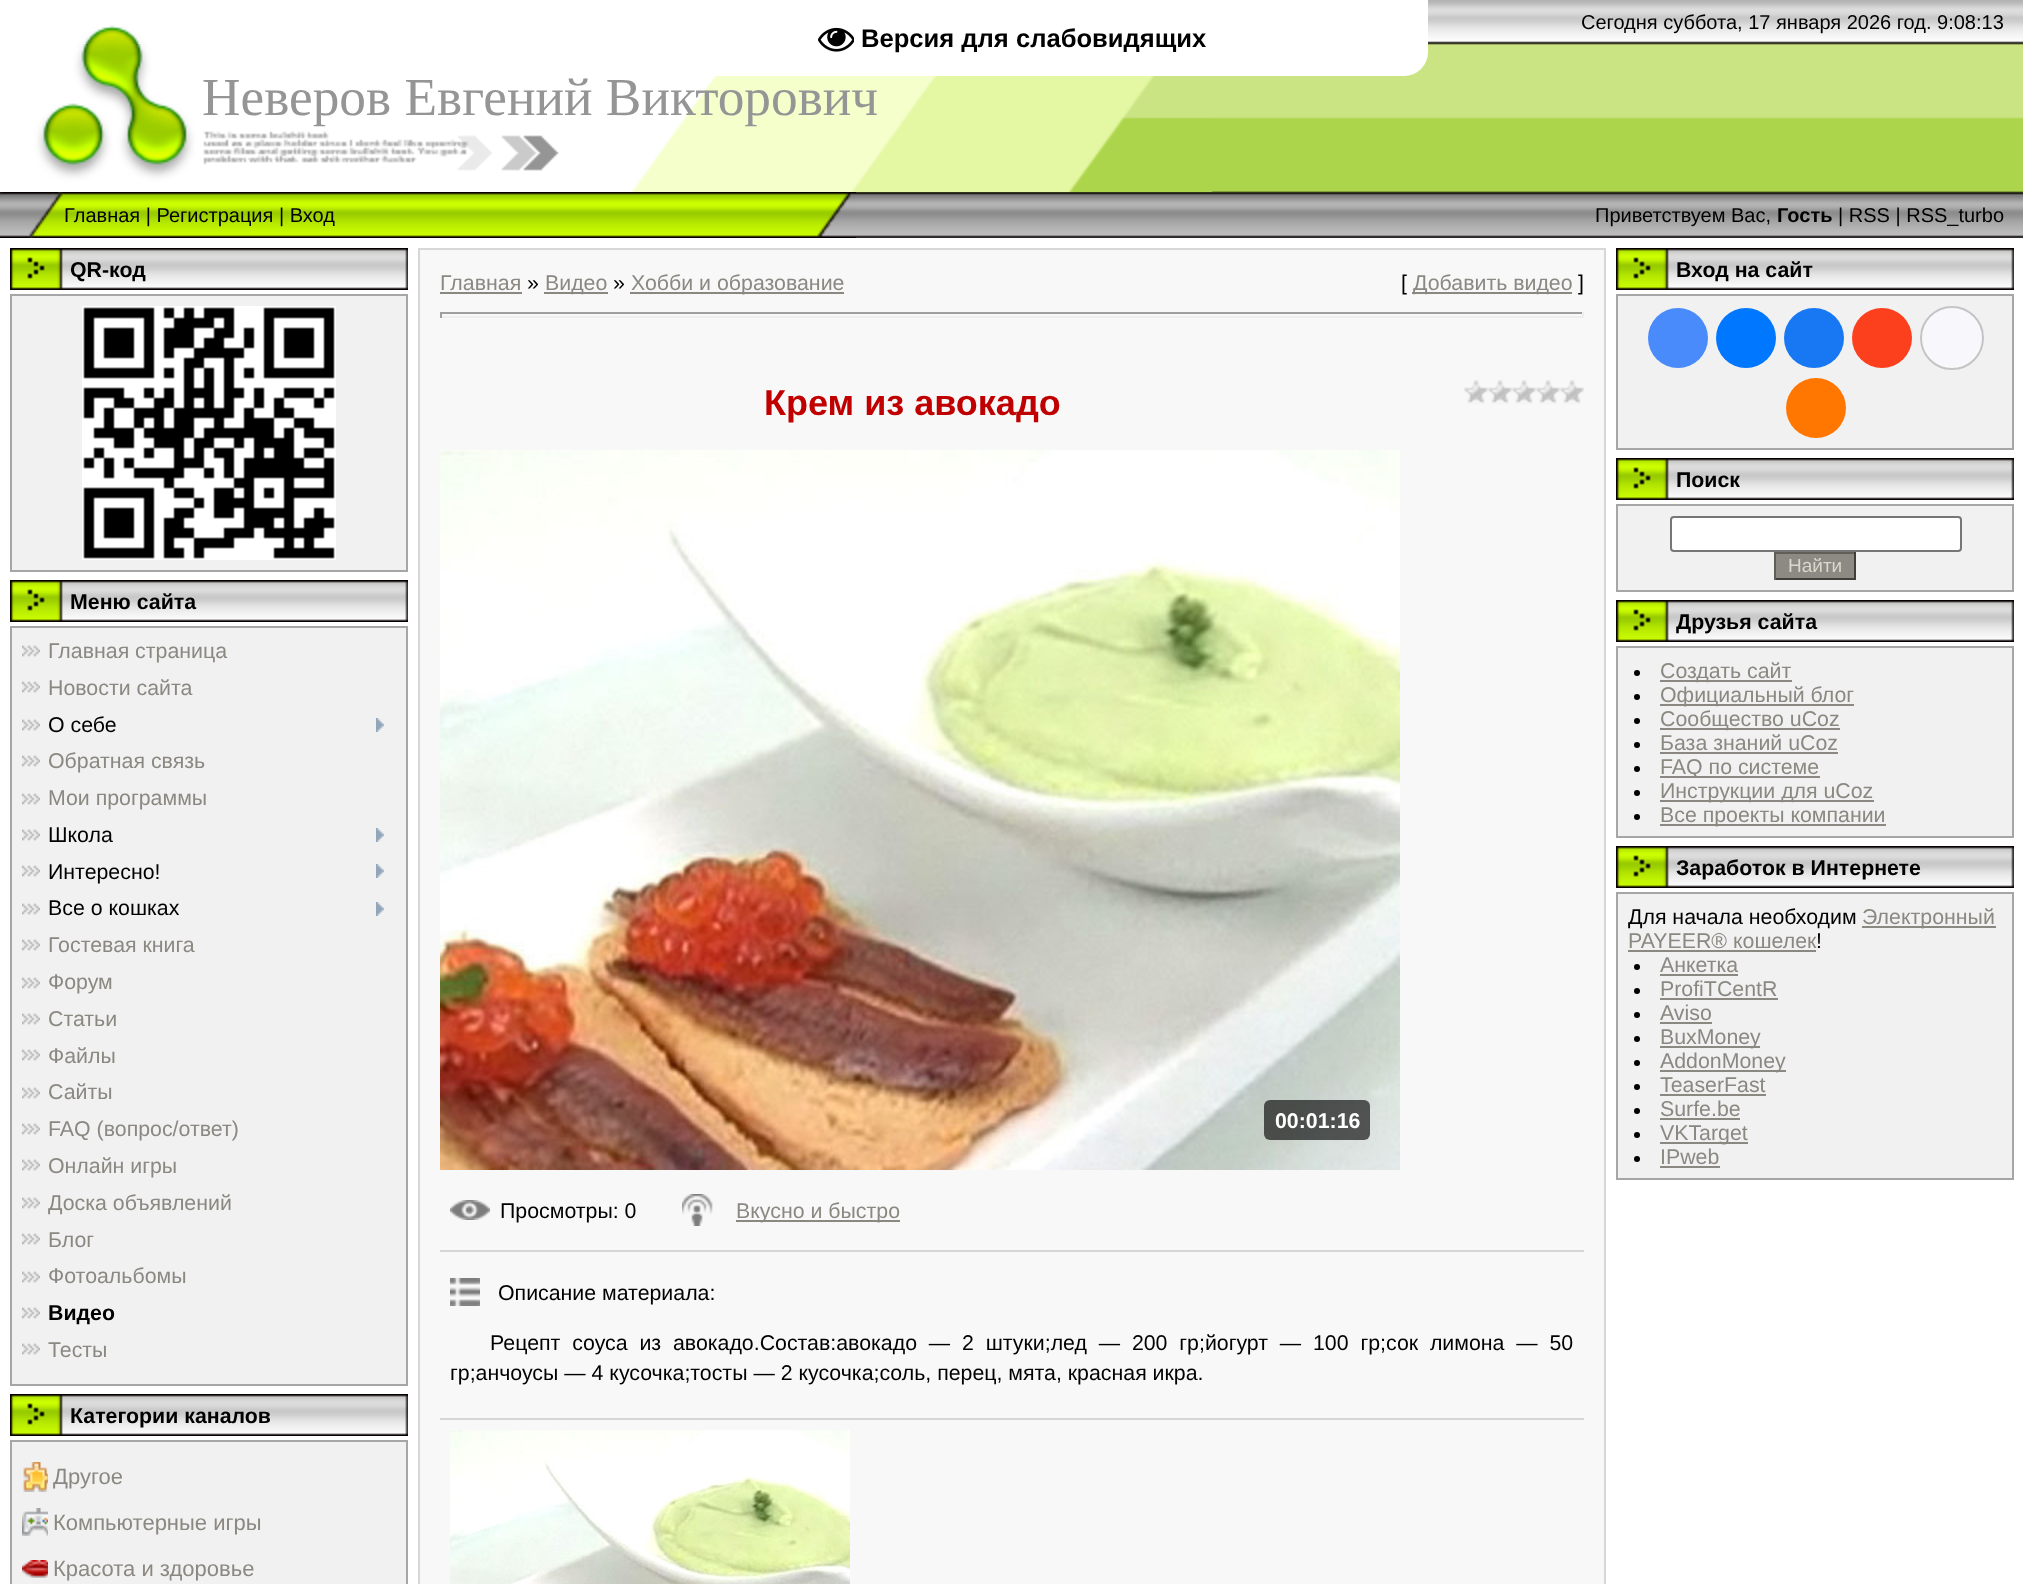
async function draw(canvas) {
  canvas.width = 2023
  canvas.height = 1584
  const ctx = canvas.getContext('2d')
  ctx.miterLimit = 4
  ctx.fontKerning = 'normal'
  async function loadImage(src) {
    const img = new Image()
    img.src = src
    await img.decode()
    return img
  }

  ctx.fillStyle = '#fff'
  ctx.fillRect(0, 0, 2023, 1584)
  ctx.drawImage(await loadImage('image0.png'), 856, 0, 1167, 238)
  ctx.drawImage(await loadImage('image1.png'), 0, 0, 202, 44)
  ctx.drawImage(await loadImage('image2.png'), 202, 0, 396, 44)
  ctx.font = '20px Liberation Sans'
  ctx.fillStyle = '#000'
  ctx.fillText('Сегодня суббота, 17 января 2026 год. 9:08:13', 1581, 29)
  ctx.drawImage(await loadImage('image3.png'), 0, 44, 202, 148)
  ctx.drawImage(await loadImage('image4.png'), 202, 44, 1010, 148)
  ctx.font = '53.3px Liberation Serif'
  ctx.fillStyle = '#969595'
  ctx.fillText('Неверов Евгений Викторович', 202, 115)
  ctx.drawImage(await loadImage('image5.png'), 0, 192, 64, 46)
  ctx.drawImage(await loadImage('image6.png'), 64, 192, 738, 46)
  ctx.font = '20px Liberation Sans'
  ctx.fillStyle = '#000'
  ctx.fillText('Главная | Регистрация | Вход', 64, 222)
  ctx.drawImage(await loadImage('image7.png'), 802, 192, 54, 46)
  ctx.fillText('Приветствуем Вас,', 1595, 222)
  ctx.font = 'bold 20px Liberation Sans'
  ctx.fillText('Гость', 1777, 222)
  ctx.font = '20px Liberation Sans'
  ctx.fillText('| RSS | RSS_turbo', 1838, 222)
  ctx.fillStyle = '#fff'
  ctx.beginPath()
  ctx.roundRect(598, 0, 830, 76, [0, 0, 24, 24])
  ctx.fill()
  ctx.drawImage(await loadImage('image8.png'), 818, 27, 36, 25)
  ctx.font = 'bold 25.6px Liberation Sans'
  ctx.fillStyle = '#000'
  ctx.fillText('Версия для слабовидящих', 861, 47)
  ctx.drawImage(await loadImage('image9.png'), 10, 248, 398, 42)
  ctx.font = 'bold 21.33px Liberation Sans'
  ctx.fillText('QR-код', 70, 277)
  ctx.fillStyle = '#f1f1f1'
  ctx.beginPath()
  ctx.rect(11, 295, 396, 276)
  ctx.fill()
  ctx.strokeStyle = '#a7a6a6'
  ctx.lineWidth = 2
  ctx.stroke()
  ctx.drawImage(await loadImage('image10.png'), 82, 306, 254, 254)
  ctx.drawImage(await loadImage('image9.png'), 10, 580, 398, 42)
  ctx.fillStyle = '#000'
  ctx.fillText('Меню сайта', 70, 609)
  ctx.fillStyle = '#f1f1f1'
  ctx.beginPath()
  ctx.rect(11, 627, 396, 758)
  ctx.fill()
  ctx.stroke()
  ctx.drawImage(await loadImage('image11.png'), 22, 645, 18, 12)
  ctx.font = '21.33px Liberation Sans'
  ctx.fillStyle = '#8b8881'
  ctx.fillText('Главная страница', 48, 658)
  ctx.drawImage(await loadImage('image11.png'), 22, 681, 18, 12)
  ctx.fillText('Новости сайта', 48, 695)
  ctx.drawImage(await loadImage('image11.png'), 22, 719, 18, 12)
  ctx.fillStyle = '#000'
  ctx.fillText('О себе', 48, 732)
  ctx.drawImage(await loadImage('image12.png'), 376, 718, 8, 14)
  ctx.drawImage(await loadImage('image11.png'), 22, 755, 18, 12)
  ctx.fillStyle = '#8b8881'
  ctx.fillText('Обратная связь', 48, 768)
  ctx.drawImage(await loadImage('image11.png'), 22, 793, 18, 12)
  ctx.fillText('Мои программы', 48, 805)
  ctx.drawImage(await loadImage('image11.png'), 22, 829, 18, 12)
  ctx.fillStyle = '#000'
  ctx.fillText('Школа', 48, 842)
  ctx.drawImage(await loadImage('image12.png'), 376, 828, 8, 14)
  ctx.drawImage(await loadImage('image11.png'), 22, 865, 18, 12)
  ctx.fillText('Интересно!', 48, 879)
  ctx.drawImage(await loadImage('image12.png'), 376, 864, 8, 14)
  ctx.drawImage(await loadImage('image11.png'), 22, 903, 18, 12)
  ctx.fillText('Все о кошках', 48, 915)
  ctx.drawImage(await loadImage('image12.png'), 376, 902, 8, 14)
  ctx.drawImage(await loadImage('image11.png'), 22, 939, 18, 12)
  ctx.fillStyle = '#8b8881'
  ctx.fillText('Гостевая книга', 48, 952)
  ctx.drawImage(await loadImage('image11.png'), 22, 977, 18, 12)
  ctx.fillText('Форум', 48, 989)
  ctx.drawImage(await loadImage('image11.png'), 22, 1013, 18, 12)
  ctx.fillText('Статьи', 48, 1026)
  ctx.drawImage(await loadImage('image11.png'), 22, 1049, 18, 12)
  ctx.fillText('Файлы', 48, 1063)
  ctx.drawImage(await loadImage('image11.png'), 22, 1087, 18, 12)
  ctx.fillText('Сайты', 48, 1099)
  ctx.drawImage(await loadImage('image11.png'), 22, 1123, 18, 12)
  ctx.fillText('FAQ (вопрос/ответ)', 48, 1136)
  ctx.drawImage(await loadImage('image11.png'), 22, 1159, 18, 12)
  ctx.fillText('Онлайн игры', 48, 1173)
  ctx.drawImage(await loadImage('image11.png'), 22, 1197, 18, 12)
  ctx.fillText('Доска объявлений', 48, 1210)
  ctx.drawImage(await loadImage('image11.png'), 22, 1233, 18, 12)
  ctx.fillText('Блог', 48, 1247)
  ctx.drawImage(await loadImage('image11.png'), 22, 1271, 18, 12)
  ctx.fillText('Фотоальбомы', 48, 1283)
  ctx.drawImage(await loadImage('image11.png'), 22, 1307, 18, 12)
  ctx.font = 'bold 21.33px Liberation Sans'
  ctx.fillStyle = '#000'
  ctx.fillText('Видео', 48, 1320)
  ctx.drawImage(await loadImage('image11.png'), 22, 1343, 18, 12)
  ctx.font = '21.33px Liberation Sans'
  ctx.fillStyle = '#8b8881'
  ctx.fillText('Тесты', 48, 1357)
  ctx.drawImage(await loadImage('image9.png'), 10, 1394, 398, 42)
  ctx.font = 'bold 21.33px Liberation Sans'
  ctx.fillStyle = '#000'
  ctx.fillText('Категории каналов', 70, 1423)
  ctx.fillStyle = '#f1f1f1'
  ctx.beginPath()
  ctx.rect(11, 1441, 396, 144)
  ctx.fill()
  ctx.stroke()
  ctx.drawImage(await loadImage('image13.png'), 23, 1462, 25, 30)
  ctx.font = '22px Liberation Sans'
  ctx.fillStyle = '#8b8881'
  ctx.fillText('Другое', 53, 1484)
  ctx.drawImage(await loadImage('image14.png'), 22, 1508, 26, 28)
  ctx.fillText('Компьютерные игры', 53, 1530)
  ctx.drawImage(await loadImage('image15.png'), 22, 1560, 26, 18)
  ctx.fillText('Красота и здоровье', 53, 1576)
  ctx.strokeStyle = '#d7d7d7'
  ctx.strokeRect(419, 249, 1186, 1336)
  ctx.fillStyle = '#f8f8f8'
  ctx.fillRect(420, 250, 1184, 1334)
  ctx.font = '21.33px Liberation Sans'
  ctx.fillStyle = '#8b8881'
  ctx.fillText('Главная', 440, 290)
  ctx.fillRect(440, 292, 82, 2)
  ctx.fillStyle = '#000'
  ctx.fillText('»', 527, 290)
  ctx.fillStyle = '#8b8881'
  ctx.fillRect(544, 292, 64, 2)
  ctx.fillText('Видео', 545, 290)
  ctx.fillStyle = '#000'
  ctx.fillText('»', 613, 290)
  ctx.fillStyle = '#8b8881'
  ctx.fillRect(630, 292, 214, 2)
  ctx.fillText('Хобби и образование', 631, 290)
  ctx.fillStyle = '#000'
  ctx.fillText('[', 1401, 290)
  ctx.fillStyle = '#8b8881'
  ctx.fillRect(1412, 292, 160, 2)
  ctx.fillText('Добавить видео', 1413, 290)
  ctx.fillStyle = '#000'
  ctx.fillText(']', 1578, 290)
  ctx.fillStyle = '#9f9f9f'
  ctx.fillRect(440, 312, 1144, 2)
  ctx.fillStyle = '#eee'
  ctx.fillRect(1582, 312, 2, 6)
  ctx.fillRect(440, 316, 1144, 2)
  ctx.fillStyle = '#9f9f9f'
  ctx.fillRect(440, 312, 2, 6)
  ctx.font = 'bold 36px Liberation Sans'
  ctx.fillStyle = '#c00000'
  ctx.fillText('Крем из авокадо', 764, 415)
  ctx.drawImage(await loadImage('image16.png'), 1464, 380, 120, 24)
  ctx.drawImage(await loadImage('image17.png'), 440, 450, 960, 720)
  ctx.fillStyle = '#000000a1'
  ctx.beginPath()
  ctx.roundRect(1264, 1100, 106, 40, 6)
  ctx.fill()
  ctx.font = 'bold 21.33px Liberation Sans'
  ctx.fillStyle = '#fff'
  ctx.fillText('00:01:16', 1275, 1128)
  ctx.drawImage(await loadImage('image18.png'), 450, 1200, 40, 20)
  ctx.font = '21.33px Liberation Sans'
  ctx.fillStyle = '#000'
  ctx.fillText('Просмотры: 0', 500, 1218)
  ctx.drawImage(await loadImage('image19.png'), 682, 1194, 31, 32)
  ctx.fillStyle = '#8b8881'
  ctx.fillRect(736, 1220, 164, 2)
  ctx.fillText('Вкусно и быстро', 736, 1218)
  ctx.fillStyle = '#d6d6d6'
  ctx.fillRect(440, 1250, 1144, 2)
  ctx.drawImage(await loadImage('image20.png'), 450, 1278, 30, 28)
  ctx.fillStyle = '#000'
  ctx.fillText('Описание материала:', 498, 1300)
  ctx.wordSpacing = '5.9px'
  ctx.fillText('Рецепт соуса из авокадо.Состав:авокадо — 2 штуки;лед — 200 гр;йогурт — 100 гр;сок лимона — 50', 490, 1350)
  ctx.wordSpacing = '0px'
  ctx.fillText('гр;анчоусы — 4 кусочка;тосты — 2 кусочка;соль, перец, мята, красная икра.', 450, 1380)
  ctx.fillStyle = '#d6d6d6'
  ctx.fillRect(440, 1418, 1144, 2)
  ctx.drawImage(await loadImage('image21.png'), 450, 1430, 400, 154)
  ctx.drawImage(await loadImage('image9.png'), 1616, 248, 398, 42)
  ctx.font = 'bold 21.33px Liberation Sans'
  ctx.fillStyle = '#000'
  ctx.fillText('Вход на сайт', 1676, 277)
  ctx.fillStyle = '#f1f1f1'
  ctx.beginPath()
  ctx.rect(1617, 295, 396, 154)
  ctx.fill()
  ctx.strokeStyle = '#a7a6a6'
  ctx.stroke()
  ctx.fillStyle = '#498bfa'
  ctx.beginPath()
  ctx.arc(1678, 338, 30, 0, 2 * Math.PI)
  ctx.fill()
  ctx.fillStyle = '#07f'
  ctx.beginPath()
  ctx.arc(1746, 338, 30, 0, 2 * Math.PI)
  ctx.fill()
  ctx.fillStyle = '#1877f2'
  ctx.beginPath()
  ctx.arc(1814, 338, 30, 0, 2 * Math.PI)
  ctx.fill()
  ctx.fillStyle = '#fc3f1d'
  ctx.beginPath()
  ctx.arc(1882, 338, 30, 0, 2 * Math.PI)
  ctx.fill()
  ctx.fillStyle = '#f8f8fc'
  ctx.beginPath()
  ctx.arc(1952, 338, 31, 0, 2 * Math.PI)
  ctx.fill()
  ctx.strokeStyle = '#c4c4c4'
  ctx.stroke()
  ctx.fillStyle = '#f70'
  ctx.beginPath()
  ctx.arc(1816, 408, 30, 0, 2 * Math.PI)
  ctx.fill()
  ctx.drawImage(await loadImage('image9.png'), 1616, 458, 398, 42)
  ctx.fillStyle = '#000'
  ctx.fillText('Поиск', 1676, 487)
  ctx.fillStyle = '#f1f1f1'
  ctx.beginPath()
  ctx.rect(1617, 505, 396, 86)
  ctx.fill()
  ctx.strokeStyle = '#a7a6a6'
  ctx.stroke()
  ctx.fillStyle = '#fff'
  ctx.beginPath()
  ctx.roundRect(1671, 517, 290, 34, 3)
  ctx.fill()
  ctx.strokeStyle = '#767676'
  ctx.stroke()
  ctx.fillStyle = '#8d8a83'
  ctx.fillRect(1776, 554, 78, 24)
  ctx.fillStyle = '#615e58'
  ctx.fillRect(1774, 552, 82, 2)
  ctx.fillStyle = '#413f3b'
  ctx.fillRect(1854, 552, 2, 28)
  ctx.fillRect(1774, 578, 82, 2)
  ctx.fillStyle = '#615e58'
  ctx.fillRect(1774, 552, 2, 28)
  ctx.font = '19px Liberation Sans'
  ctx.fillStyle = '#dad7cc'
  ctx.fillText('Найти', 1788, 572)
  ctx.drawImage(await loadImage('image9.png'), 1616, 600, 398, 42)
  ctx.font = 'bold 21.33px Liberation Sans'
  ctx.fillStyle = '#000'
  ctx.fillText('Друзья сайта', 1676, 629)
  ctx.fillStyle = '#f1f1f1'
  ctx.beginPath()
  ctx.rect(1617, 647, 396, 190)
  ctx.fill()
  ctx.strokeStyle = '#a7a6a6'
  ctx.stroke()
  ctx.fillStyle = '#000'
  ctx.beginPath()
  ctx.arc(1637, 673, 3, 0, 2 * Math.PI)
  ctx.fill()
  ctx.fillStyle = '#8b8881'
  ctx.fillRect(1660, 680, 132, 2)
  ctx.font = '21.33px Liberation Sans'
  ctx.fillText('Создать сайт', 1660, 678)
  ctx.fillStyle = '#000'
  ctx.beginPath()
  ctx.arc(1637, 697, 3, 0, 2 * Math.PI)
  ctx.fill()
  ctx.fillStyle = '#8b8881'
  ctx.fillRect(1660, 704, 194, 2)
  ctx.fillText('Официальный блог', 1660, 702)
  ctx.fillStyle = '#000'
  ctx.beginPath()
  ctx.arc(1637, 721, 3, 0, 2 * Math.PI)
  ctx.fill()
  ctx.fillStyle = '#8b8881'
  ctx.fillRect(1660, 728, 180, 2)
  ctx.fillText('Сообщество uCoz', 1660, 726)
  ctx.fillStyle = '#000'
  ctx.beginPath()
  ctx.arc(1637, 745, 3, 0, 2 * Math.PI)
  ctx.fill()
  ctx.fillStyle = '#8b8881'
  ctx.fillText('База знаний uCoz', 1660, 750)
  ctx.fillRect(1660, 752, 178, 2)
  ctx.fillStyle = '#000'
  ctx.beginPath()
  ctx.arc(1637, 769, 3, 0, 2 * Math.PI)
  ctx.fill()
  ctx.fillStyle = '#8b8881'
  ctx.fillRect(1660, 776, 160, 2)
  ctx.fillText('FAQ по системе', 1660, 774)
  ctx.fillStyle = '#000'
  ctx.beginPath()
  ctx.arc(1637, 793, 3, 0, 2 * Math.PI)
  ctx.fill()
  ctx.fillStyle = '#8b8881'
  ctx.fillRect(1660, 800, 214, 2)
  ctx.fillText('Инструкции для uCoz', 1660, 798)
  ctx.fillStyle = '#000'
  ctx.beginPath()
  ctx.arc(1637, 817, 3, 0, 2 * Math.PI)
  ctx.fill()
  ctx.fillStyle = '#8b8881'
  ctx.fillRect(1660, 824, 226, 2)
  ctx.fillText('Все проекты компании', 1660, 822)
  ctx.drawImage(await loadImage('image9.png'), 1616, 846, 398, 42)
  ctx.font = 'bold 21.33px Liberation Sans'
  ctx.fillStyle = '#000'
  ctx.fillText('Заработок в Интернете', 1676, 875)
  ctx.fillStyle = '#f1f1f1'
  ctx.beginPath()
  ctx.rect(1617, 893, 396, 286)
  ctx.fill()
  ctx.stroke()
  ctx.font = '21.33px Liberation Sans'
  ctx.fillStyle = '#000'
  ctx.fillText('Для начала необходим', 1628, 924)
  ctx.fillStyle = '#8b8881'
  ctx.fillRect(1862, 926, 134, 2)
  ctx.fillText('Электронный', 1862, 924)
  ctx.fillText('PAYEER® кошелек', 1628, 948)
  ctx.fillRect(1628, 950, 188, 2)
  ctx.fillStyle = '#000'
  ctx.fillText('!', 1816, 948)
  ctx.beginPath()
  ctx.arc(1637, 967, 3, 0, 2 * Math.PI)
  ctx.fill()
  ctx.fillStyle = '#8b8881'
  ctx.fillText('Анкетка', 1660, 972)
  ctx.fillRect(1660, 974, 78, 2)
  ctx.fillStyle = '#000'
  ctx.beginPath()
  ctx.arc(1637, 991, 3, 0, 2 * Math.PI)
  ctx.fill()
  ctx.fillStyle = '#8b8881'
  ctx.fillText('ProfiTCentR', 1660, 996)
  ctx.fillRect(1660, 998, 118, 2)
  ctx.fillStyle = '#000'
  ctx.beginPath()
  ctx.arc(1637, 1015, 3, 0, 2 * Math.PI)
  ctx.fill()
  ctx.fillStyle = '#8b8881'
  ctx.fillText('Aviso', 1660, 1020)
  ctx.fillRect(1660, 1022, 52, 2)
  ctx.fillStyle = '#000'
  ctx.beginPath()
  ctx.arc(1637, 1039, 3, 0, 2 * Math.PI)
  ctx.fill()
  ctx.fillStyle = '#8b8881'
  ctx.fillRect(1660, 1046, 100, 2)
  ctx.fillText('BuxMoney', 1660, 1044)
  ctx.fillStyle = '#000'
  ctx.beginPath()
  ctx.arc(1637, 1063, 3, 0, 2 * Math.PI)
  ctx.fill()
  ctx.fillStyle = '#8b8881'
  ctx.fillRect(1660, 1070, 126, 2)
  ctx.fillText('AddonMoney', 1660, 1068)
  ctx.fillStyle = '#000'
  ctx.beginPath()
  ctx.arc(1637, 1087, 3, 0, 2 * Math.PI)
  ctx.fill()
  ctx.fillStyle = '#8b8881'
  ctx.fillText('TeaserFast', 1660, 1092)
  ctx.fillRect(1660, 1094, 106, 2)
  ctx.fillStyle = '#000'
  ctx.beginPath()
  ctx.arc(1637, 1111, 3, 0, 2 * Math.PI)
  ctx.fill()
  ctx.fillStyle = '#8b8881'
  ctx.fillText('Surfe.be', 1660, 1116)
  ctx.fillRect(1660, 1118, 80, 2)
  ctx.fillStyle = '#000'
  ctx.beginPath()
  ctx.arc(1637, 1135, 3, 0, 2 * Math.PI)
  ctx.fill()
  ctx.fillStyle = '#8b8881'
  ctx.fillRect(1660, 1142, 88, 2)
  ctx.fillText('VKTarget', 1660, 1140)
  ctx.fillStyle = '#000'
  ctx.beginPath()
  ctx.arc(1637, 1159, 3, 0, 2 * Math.PI)
  ctx.fill()
  ctx.fillStyle = '#8b8881'
  ctx.fillText('IPweb', 1660, 1164)
  ctx.fillRect(1660, 1166, 60, 2)
}

draw(document.querySelector('canvas'))
